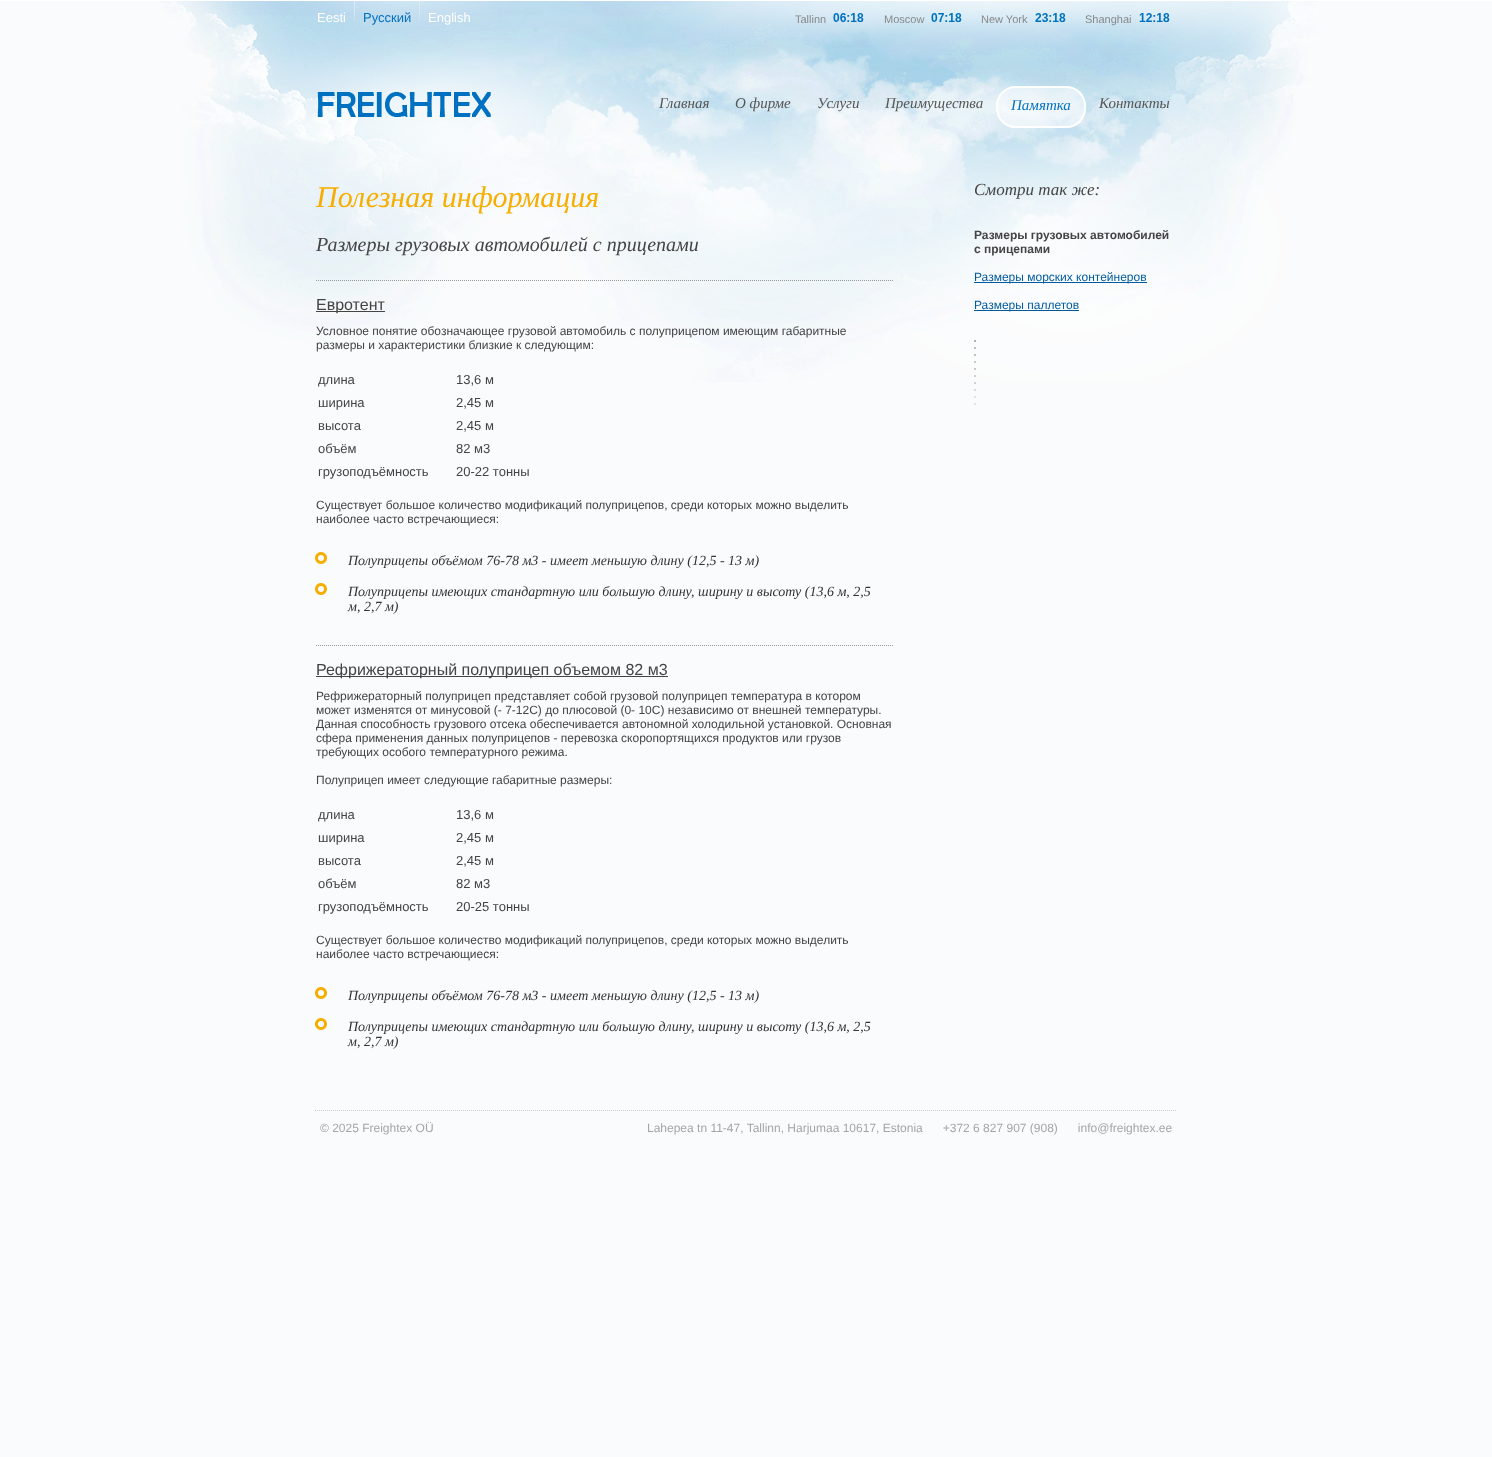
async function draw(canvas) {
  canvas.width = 1492
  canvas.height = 1457
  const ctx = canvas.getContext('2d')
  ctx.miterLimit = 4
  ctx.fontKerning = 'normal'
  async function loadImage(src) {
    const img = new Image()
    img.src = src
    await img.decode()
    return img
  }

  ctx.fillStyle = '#fafbfc'
  ctx.fillRect(0, 0, 1492, 1457)
  ctx.drawImage(await loadImage('image0.png'), 159, 1, 1159, 381)
  ctx.fillStyle = '#fff'
  ctx.fillRect(0, 0, 1492, 1)
  ctx.font = '13px Liberation Sans'
  ctx.fillText('Eesti', 317, 22)
  ctx.drawImage(await loadImage('image1.png'), 354, 1, 1, 21)
  ctx.fillStyle = '#0071c0'
  ctx.fillText('Русский', 363, 22)
  ctx.drawImage(await loadImage('image1.png'), 419, 1, 1, 21)
  ctx.fillStyle = '#fff'
  ctx.fillText('English', 428, 22)
  ctx.font = '11px Liberation Sans'
  ctx.fillStyle = '#888'
  ctx.fillText('Tallinn', 795, 23)
  ctx.drawImage(await loadImage('image2.png'), 833, 13, 31, 9)
  ctx.fillText('Moscow', 884, 23)
  ctx.drawImage(await loadImage('image3.png'), 931, 13, 31, 9)
  ctx.fillText('New York', 981, 23)
  ctx.drawImage(await loadImage('image4.png'), 1035, 13, 31, 9)
  ctx.fillText('Shanghai', 1085, 23)
  ctx.drawImage(await loadImage('image5.png'), 1139, 13, 31, 9)
  ctx.drawImage(await loadImage('image6.png'), 317, 92, 174, 25)
  ctx.font = 'italic 15px Liberation Serif'
  ctx.fillStyle = '#555'
  ctx.fillText('Главная', 659, 108)
  ctx.fillText('О фирме', 735, 108)
  ctx.fillText('Услуги', 817, 108)
  ctx.fillText('Преимущества', 885, 108)
  ctx.drawImage(await loadImage('image7.png'), 996, 86, 90, 42)
  ctx.beginPath()
  ctx.roundRect(997, 87, 88, 40, 19)
  ctx.strokeStyle = '#fff'
  ctx.lineWidth = 2
  ctx.stroke()
  ctx.fillStyle = '#0071c0'
  ctx.fillText('Памятка', 1011, 110)
  ctx.fillStyle = '#555'
  ctx.fillText('Контакты', 1099, 108)
  ctx.font = 'italic 30px Liberation Serif'
  ctx.fillStyle = '#f6ae00'
  ctx.fillText('Полезная информация', 316, 207)
  ctx.font = 'italic 20px Liberation Serif'
  ctx.fillStyle = '#444'
  ctx.fillText('Размеры грузовых автомобилей с прицепами', 316, 251)
  ctx.beginPath()
  ctx.moveTo(316, 280.5)
  ctx.lineTo(894, 280.5)
  ctx.strokeStyle = '#999'
  ctx.lineWidth = 1
  ctx.setLineDash([1, 1])
  ctx.stroke()
  ctx.fillRect(316, 311, 69, 1)
  ctx.font = '16px Liberation Sans'
  ctx.fillText('Евротент', 316, 310)
  ctx.font = '12px Liberation Sans'
  ctx.fillText('Условное понятие обозначающее грузовой автомобиль с полуприцепом имеющим габаритные', 316, 335)
  ctx.fillText('размеры и характеристики близкие к следующим:', 316, 349)
  ctx.font = '13px Liberation Sans'
  ctx.fillText('длина', 318, 384)
  ctx.fillText('13,6 м', 456, 384)
  ctx.fillText('ширина', 318, 407)
  ctx.fillText('2,45 м', 456, 407)
  ctx.fillText('высота', 318, 430)
  ctx.fillText('2,45 м', 456, 430)
  ctx.fillText('объём', 318, 453)
  ctx.fillText('82 м3', 456, 453)
  ctx.fillText('грузоподъёмность', 318, 476)
  ctx.fillText('20-22 тонны', 456, 476)
  ctx.font = '12px Liberation Sans'
  ctx.fillText('Существует большое количество модификаций полуприцепов, среди которых можно выделить', 316, 509)
  ctx.fillText('наиболее часто встречающиеся:', 316, 523)
  ctx.drawImage(await loadImage('image8.png'), 315, 552, 12, 12)
  ctx.font = 'italic 14px Liberation Serif'
  ctx.fillStyle = '#333'
  ctx.fillText('Полуприцепы объёмом 76-78 м3 - имеет меньшую длину (12,5 - 13 м)', 348, 565)
  ctx.drawImage(await loadImage('image8.png'), 315, 583, 12, 12)
  ctx.fillText('Полуприцепы имеющих стандартную или большую длину, ширину и высоту (13,6 м, 2,5', 348, 596)
  ctx.fillText('м, 2,7 м)', 348, 611)
  ctx.beginPath()
  ctx.moveTo(316, 645.5)
  ctx.lineTo(894, 645.5)
  ctx.stroke()
  ctx.fillStyle = '#444'
  ctx.fillRect(316, 676, 352, 1)
  ctx.font = '16px Liberation Sans'
  ctx.fillText('Рефрижераторный полуприцеп объемом 82 м3', 316, 675)
  ctx.font = '12px Liberation Sans'
  ctx.fillText('Рефрижераторный полуприцеп представляет собой грузовой полуприцеп температура в котором', 316, 700)
  ctx.fillText('может изменятся от минусовой (- 7-12С) до плюсовой (0- 10С) независимо от внешней температуры.', 316, 714)
  ctx.fillText('Данная способность грузового отсека обеспечивается автономной холодильной установкой. Основная', 316, 728)
  ctx.fillText('сфера применения данных полуприцепов - перевозка скоропортящихся продуктов или грузов', 316, 742)
  ctx.fillText('требующих особого температурного режима.', 316, 756)
  ctx.fillText('Полуприцеп имеет следующие габаритные размеры:', 316, 784)
  ctx.font = '13px Liberation Sans'
  ctx.fillText('длина', 318, 819)
  ctx.fillText('13,6 м', 456, 819)
  ctx.fillText('ширина', 318, 842)
  ctx.fillText('2,45 м', 456, 842)
  ctx.fillText('высота', 318, 865)
  ctx.fillText('2,45 м', 456, 865)
  ctx.fillText('объём', 318, 888)
  ctx.fillText('82 м3', 456, 888)
  ctx.fillText('грузоподъёмность', 318, 911)
  ctx.fillText('20-25 тонны', 456, 911)
  ctx.font = '12px Liberation Sans'
  ctx.fillText('Существует большое количество модификаций полуприцепов, среди которых можно выделить', 316, 944)
  ctx.fillText('наиболее часто встречающиеся:', 316, 958)
  ctx.drawImage(await loadImage('image8.png'), 315, 987, 12, 12)
  ctx.font = 'italic 14px Liberation Serif'
  ctx.fillStyle = '#333'
  ctx.fillText('Полуприцепы объёмом 76-78 м3 - имеет меньшую длину (12,5 - 13 м)', 348, 1000)
  ctx.drawImage(await loadImage('image8.png'), 315, 1018, 12, 12)
  ctx.fillText('Полуприцепы имеющих стандартную или большую длину, ширину и высоту (13,6 м, 2,5', 348, 1031)
  ctx.fillText('м, 2,7 м)', 348, 1046)
  ctx.font = 'italic 17px Liberation Serif'
  ctx.fillStyle = '#444'
  ctx.fillText('Смотри так же:', 974, 195)
  ctx.font = 'bold 12px Liberation Sans'
  ctx.fillText('Размеры грузовых автомобилей', 974, 239)
  ctx.fillText('с прицепами', 974, 253)
  ctx.fillStyle = '#005b9e'
  ctx.fillRect(974, 282, 173, 1)
  ctx.font = '12px Liberation Sans'
  ctx.fillText('Размеры морских контейнеров', 974, 281)
  ctx.fillRect(974, 310, 105, 1)
  ctx.fillText('Размеры паллетов', 974, 309)
  ctx.drawImage(await loadImage('image9.png'), 974, 340, 2, 65)
  ctx.beginPath()
  ctx.moveTo(315, 1110.5)
  ctx.lineTo(1177, 1110.5)
  ctx.strokeStyle = '#cacdd2'
  ctx.stroke()
  ctx.fillStyle = '#a5a5a5'
  ctx.fillText('© 2025 Freightex OÜ', 320, 1132)
  ctx.fillText('Lahepea tn 11-47, Tallinn, Harjumaa 10617, Estonia      +372 6 827 907 (908)      info@freightex.ee', 647, 1132)
}

draw(document.querySelector('canvas'))
